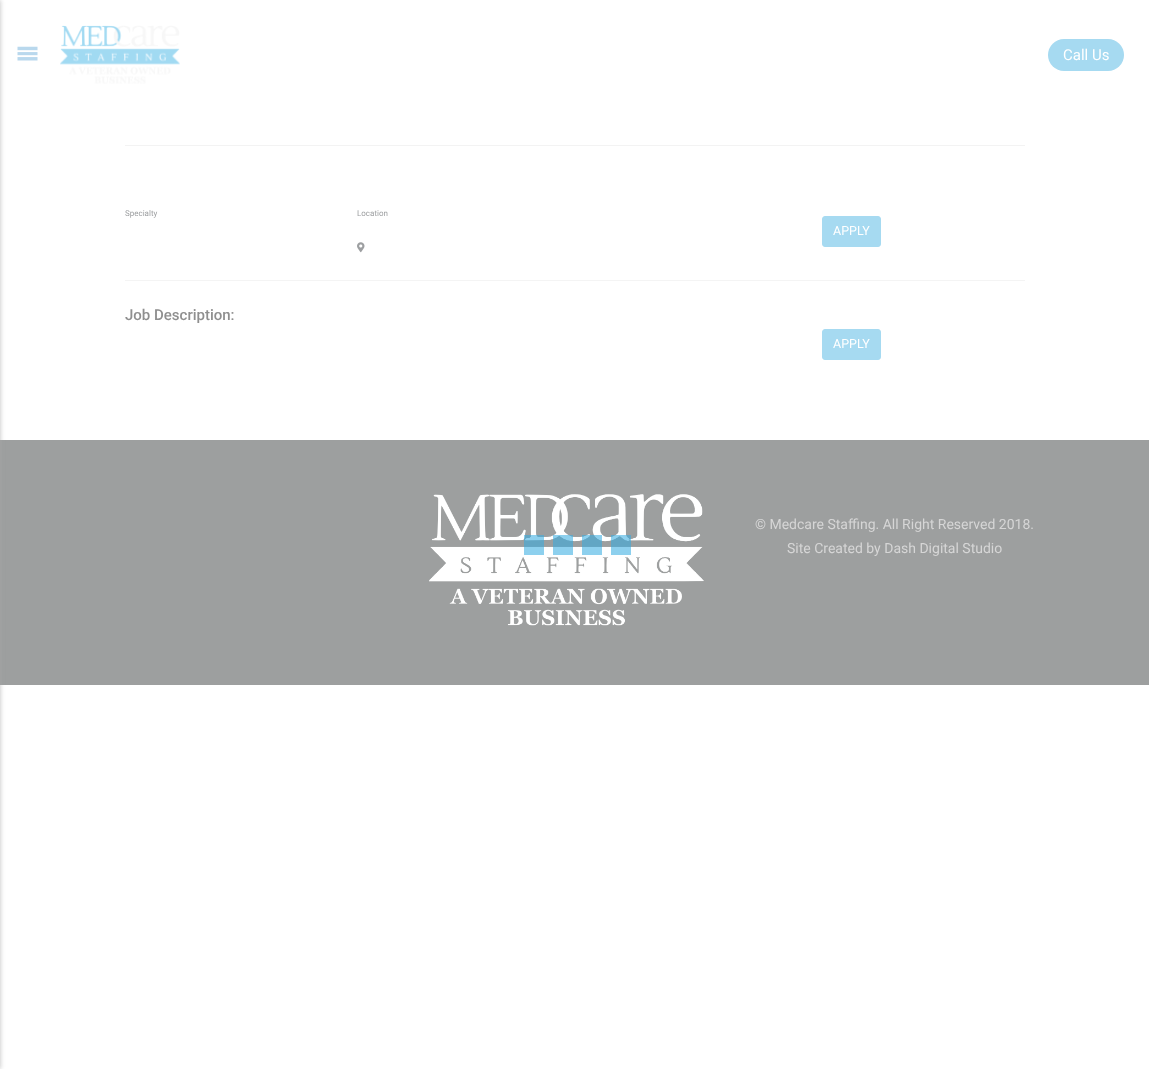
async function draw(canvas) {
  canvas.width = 1149
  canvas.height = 1069
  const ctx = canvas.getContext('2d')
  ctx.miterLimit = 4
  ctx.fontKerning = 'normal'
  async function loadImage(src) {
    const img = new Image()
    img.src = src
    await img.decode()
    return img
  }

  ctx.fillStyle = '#fff'
  ctx.fillRect(0, 0, 1149, 1069)
  ctx.drawImage(await loadImage('image0.png'), 60, 25, 120, 59)
  ctx.fillStyle = '#9d9f9f'
  ctx.fillRect(0, 440, 1149, 245)
  ctx.fillStyle = '#a5a5a5bf'
  ctx.filter = 'blur(2.5px)'
  ctx.beginPath()
  ctx.rect(-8, 0, 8, 1069)
  ctx.fill()
  ctx.filter = 'none'
  ctx.drawImage(await loadImage('image1.png'), 17, 46, 21, 15)
  ctx.fillStyle = '#a6daf1'
  ctx.beginPath()
  ctx.roundRect(1048, 39, 76, 32, 16)
  ctx.fill()
  ctx.font = '15px Roboto'
  ctx.fillStyle = '#fff'
  ctx.fillText('Call Us', 1063, 60)
  ctx.fillStyle = '#f3f3f3'
  ctx.fillRect(125, 145, 900, 1)
  ctx.font = '8px Roboto'
  ctx.fillStyle = '#9d9fa1'
  ctx.fillText('Specialty', 125, 216)
  ctx.fillText('Location', 357, 216)
  ctx.drawImage(await loadImage('image2.png'), 357, 242, 8, 11)
  ctx.fillStyle = '#a6daf1'
  ctx.beginPath()
  ctx.roundRect(822.5, 216.5, 58, 30, 2.5)
  ctx.fill()
  ctx.strokeStyle = '#a6daf1'
  ctx.stroke()
  ctx.font = '12.5px Roboto'
  ctx.fillStyle = '#fff'
  ctx.fillText('APPLY', 833, 235)
  ctx.fillStyle = '#f4f4f4'
  ctx.fillRect(125, 280, 900, 1)
  ctx.font = '500 15px Roboto'
  ctx.fillStyle = '#8f8f8f'
  ctx.fillText('Job Description:', 125, 320)
  ctx.fillStyle = '#a6daf1'
  ctx.beginPath()
  ctx.roundRect(822.5, 329.5, 58, 30, 2.5)
  ctx.fill()
  ctx.stroke()
  ctx.font = '12.5px Roboto'
  ctx.fillStyle = '#fff'
  ctx.fillText('APPLY', 833, 348)
  ctx.drawImage(await loadImage('image3.png'), 429, 494, 275, 132)
  ctx.font = '14px Roboto'
  ctx.fillStyle = '#d6d6d6'
  ctx.fillText('© Medcare Staffing. All Right Reserved 2018.', 755, 529)
  ctx.fillText('Site Created by Dash Digital Studio', 787, 553)
  ctx.fillStyle = '#34abe08f'
  ctx.fillRect(524, 535, 20, 20)
  ctx.fillRect(553, 535, 20, 20)
  ctx.fillRect(582, 535, 20, 20)
  ctx.fillRect(611, 535, 20, 20)
}

draw(document.querySelector('canvas'))
